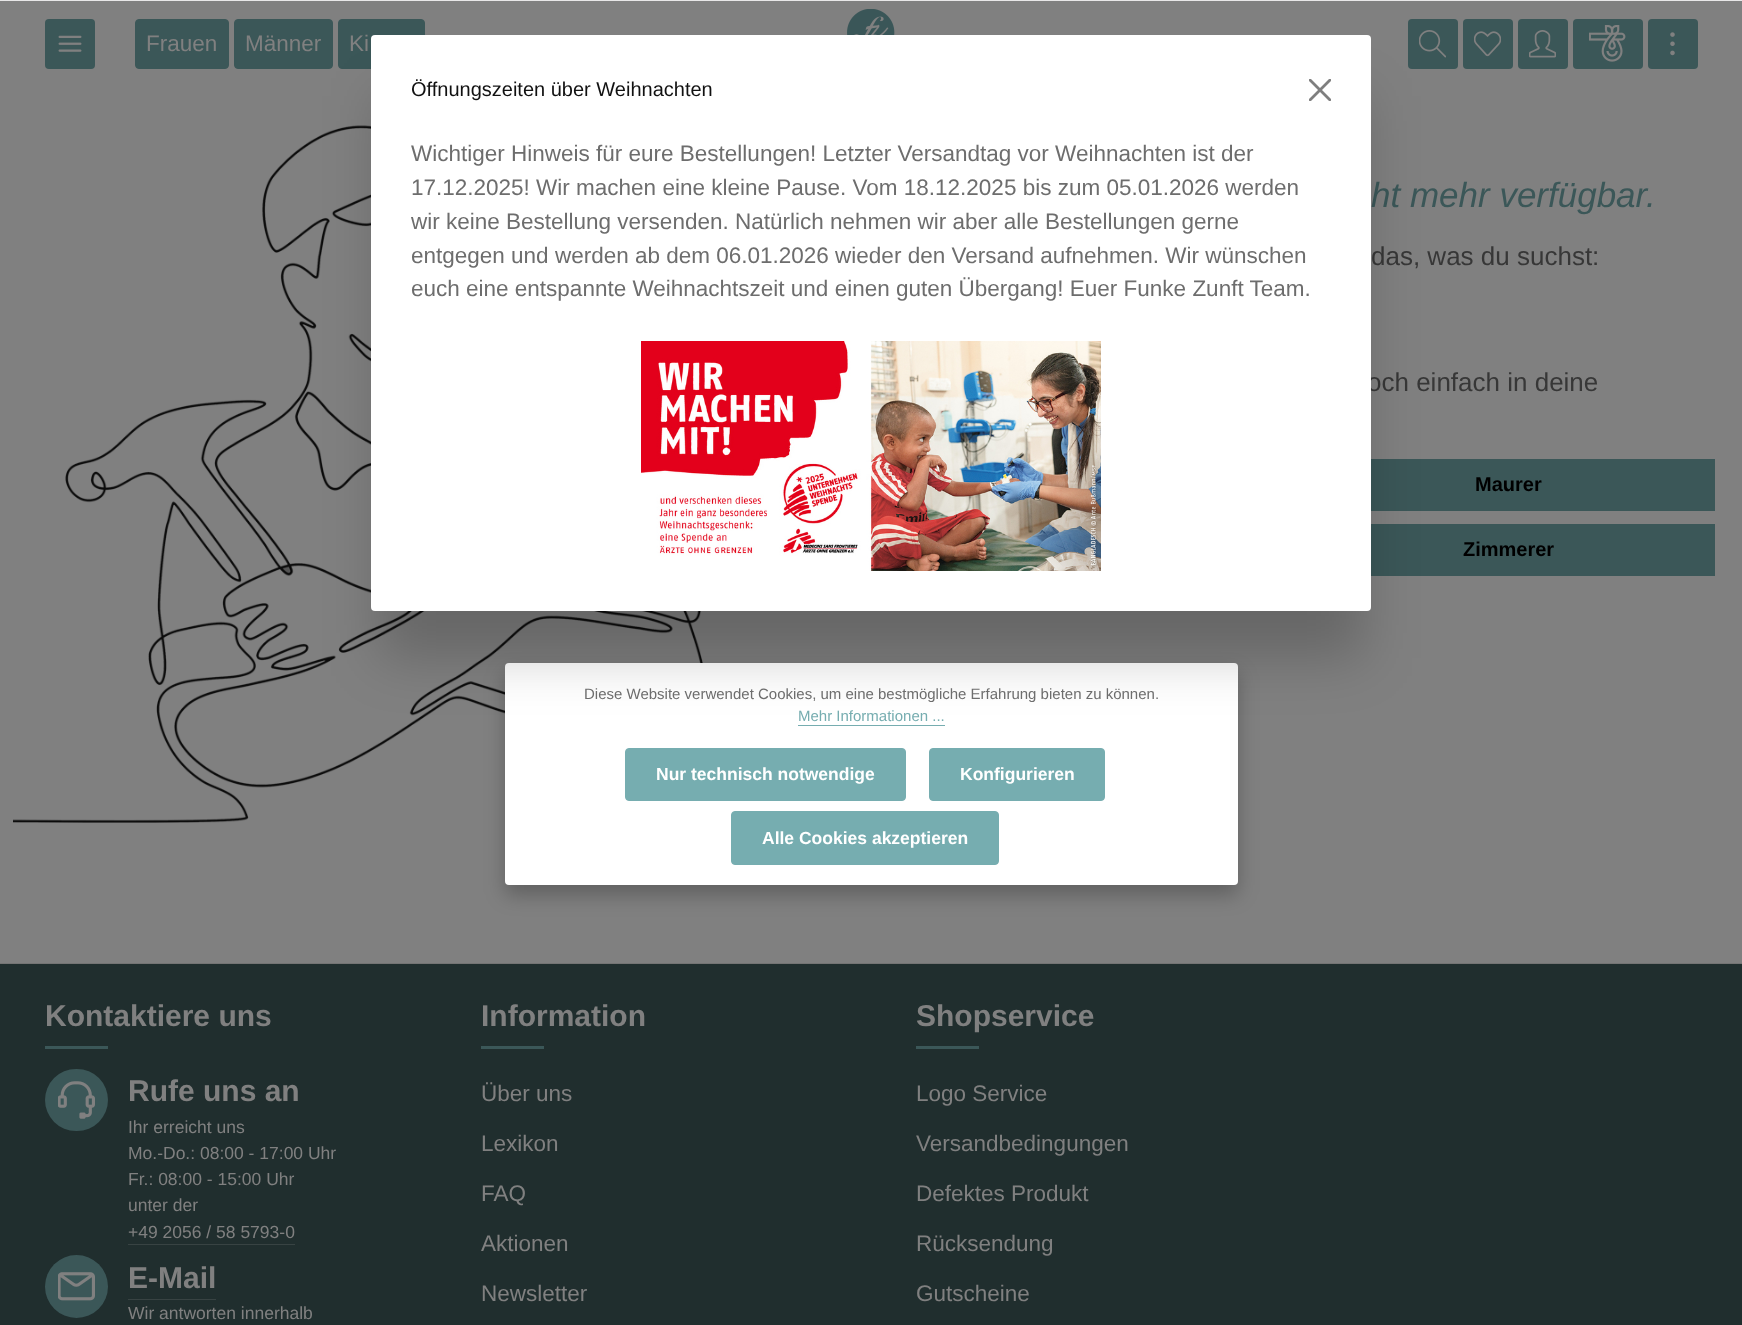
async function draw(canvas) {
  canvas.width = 1742
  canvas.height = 1325
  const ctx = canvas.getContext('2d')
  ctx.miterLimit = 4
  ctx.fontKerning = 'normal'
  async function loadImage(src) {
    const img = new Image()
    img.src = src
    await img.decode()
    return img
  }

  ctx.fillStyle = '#808080'
  ctx.fillRect(0, 0, 1742, 1325)
  ctx.fillStyle = '#3b5758'
  ctx.beginPath()
  ctx.roundRect(45, 19, 50, 50, 4)
  ctx.fill()
  ctx.drawImage(await loadImage('image0.png'), 58, 35, 24, 17)
  ctx.beginPath()
  ctx.roundRect(135.5, 19.5, 93, 49, 3.5)
  ctx.fill()
  ctx.strokeStyle = '#3b5758'
  ctx.stroke()
  ctx.font = '22.5px Liberation Sans'
  ctx.fillStyle = '#808080'
  ctx.fillText('Frauen', 146, 51)
  ctx.fillStyle = '#3b5758'
  ctx.beginPath()
  ctx.roundRect(234.5, 19.5, 98, 49, 3.5)
  ctx.fill()
  ctx.stroke()
  ctx.fillStyle = '#808080'
  ctx.fillText('Männer', 245, 51)
  ctx.fillStyle = '#3b5758'
  ctx.beginPath()
  ctx.roundRect(338.5, 19.5, 86, 49, 3.5)
  ctx.fill()
  ctx.stroke()
  ctx.fillStyle = '#808080'
  ctx.fillText('Ki', 349, 51)
  ctx.drawImage(await loadImage('image1.png'), 847, 9, 48, 26)
  ctx.fillStyle = '#3b5758'
  ctx.beginPath()
  ctx.roundRect(1408, 19, 50, 50, 4)
  ctx.fill()
  ctx.drawImage(await loadImage('image2.png'), 1419, 30, 27, 28)
  ctx.beginPath()
  ctx.roundRect(1463, 19, 50, 50, 4)
  ctx.fill()
  ctx.drawImage(await loadImage('image3.png'), 1474, 31, 27, 26)
  ctx.beginPath()
  ctx.roundRect(1518, 19, 50, 50, 4)
  ctx.fill()
  ctx.drawImage(await loadImage('image4.png'), 1529, 30, 27, 28)
  ctx.beginPath()
  ctx.roundRect(1573, 19, 70, 50, 4)
  ctx.fill()
  ctx.drawImage(await loadImage('image5.png'), 1589, 25, 37, 37)
  ctx.beginPath()
  ctx.roundRect(1648, 19, 50, 50, 4)
  ctx.fill()
  ctx.drawImage(await loadImage('image6.png'), 1670, 32, 5, 24)
  ctx.drawImage(await loadImage('image7.png'), 13, 125, 858, 698)
  ctx.font = 'italic 35px Liberation Sans'
  ctx.fillText('ht mehr verfügbar.', 1371, 207)
  ctx.font = '26px Liberation Sans'
  ctx.fillStyle = '#373737'
  ctx.fillText('das, was du suchst:', 1371, 265)
  ctx.fillText('och einfach in deine', 1367, 391)
  ctx.fillStyle = '#3b5758'
  ctx.fillRect(1371, 459, 344, 52)
  ctx.font = 'bold 20px Liberation Sans'
  ctx.fillStyle = '#000'
  ctx.fillText('Maurer', 1475, 491)
  ctx.fillStyle = '#3b5758'
  ctx.fillRect(1371, 524, 344, 52)
  ctx.fillStyle = '#000'
  ctx.fillText('Zimmerer', 1463, 556)
  ctx.fillStyle = '#202e2e'
  ctx.fillRect(0, 964, 1742, 361)
  ctx.fillStyle = '#747474'
  ctx.fillRect(0, 963, 1742, 1)
  ctx.font = 'bold 30px Liberation Sans'
  ctx.fillStyle = '#808080'
  ctx.fillText('Kontaktiere uns', 45, 1026)
  ctx.fillStyle = '#3b5758'
  ctx.fillRect(45, 1046, 63, 3)
  ctx.beginPath()
  ctx.roundRect(45, 1069, 63, 62, 31)
  ctx.fill()
  ctx.drawImage(await loadImage('image8.png'), 58, 1081, 37, 38)
  ctx.fillStyle = '#808080'
  ctx.fillText('Rufe uns an', 128, 1101)
  ctx.font = '17.5px Liberation Sans'
  ctx.fillText('Ihr erreicht uns', 128, 1133)
  ctx.fillText('Mo.-Do.: 08:00 - 17:00 Uhr', 128, 1159)
  ctx.fillText('Fr.: 08:00 - 15:00 Uhr', 128, 1185)
  ctx.fillText('unter der', 128, 1211)
  ctx.fillText('+49 2056 / 58 5793-0', 128, 1238)
  ctx.fillStyle = '#384343'
  ctx.fillRect(128, 1244, 167, 1)
  ctx.fillStyle = '#3b5758'
  ctx.beginPath()
  ctx.arc(76.5, 1286.5, 31.5, 0, 2 * Math.PI)
  ctx.fill()
  ctx.drawImage(await loadImage('image9.png'), 58, 1272, 37, 29)
  ctx.font = 'bold 30px Liberation Sans'
  ctx.fillStyle = '#808080'
  ctx.fillText('E-Mail', 128, 1288)
  ctx.fillStyle = '#384343'
  ctx.fillRect(128, 1299, 88, 1)
  ctx.font = '17.5px Liberation Sans'
  ctx.fillStyle = '#808080'
  ctx.fillText('Wir antworten innerhalb', 128, 1319)
  ctx.font = 'bold 30px Liberation Sans'
  ctx.fillText('Information', 481, 1026)
  ctx.fillStyle = '#3b5758'
  ctx.fillRect(481, 1046, 63, 3)
  ctx.font = '22.5px Liberation Sans'
  ctx.fillStyle = '#808080'
  ctx.fillText('Über uns', 481, 1101)
  ctx.fillText('Lexikon', 481, 1151)
  ctx.fillText('FAQ', 481, 1201)
  ctx.fillText('Aktionen', 481, 1251)
  ctx.fillText('Newsletter', 481, 1301)
  ctx.font = 'bold 30px Liberation Sans'
  ctx.fillText('Shopservice', 916, 1026)
  ctx.fillStyle = '#3b5758'
  ctx.fillRect(916, 1046, 63, 3)
  ctx.font = '22.5px Liberation Sans'
  ctx.fillStyle = '#808080'
  ctx.fillText('Logo Service', 916, 1101)
  ctx.fillText('Versandbedingungen', 916, 1151)
  ctx.fillText('Defektes Produkt', 916, 1201)
  ctx.fillText('Rücksendung', 916, 1251)
  ctx.fillText('Gutscheine', 916, 1301)
  ctx.fillStyle = '#00000040'
  ctx.filter = 'blur(10px)'
  ctx.beginPath()
  ctx.roundRect(505, 673, 733, 222, 4)
  ctx.fill()
  ctx.filter = 'none'
  ctx.fillStyle = '#fff'
  ctx.beginPath()
  ctx.roundRect(505, 663, 733, 222, 4)
  ctx.fill()
  ctx.fillStyle = '#76adb0'
  ctx.fillRect(798, 725, 147, 1)
  ctx.fillStyle = '#00000033'
  ctx.filter = 'blur(27px)'
  ctx.beginPath()
  ctx.rect(379, 96, 985, 562)
  ctx.fill()
  ctx.filter = 'none'
  ctx.fillStyle = '#fff'
  ctx.beginPath()
  ctx.roundRect(371, 35, 1000, 576, 4)
  ctx.fill()
  ctx.font = '20px Liberation Sans'
  ctx.fillStyle = '#111'
  ctx.fillText('Öffnungszeiten über Weihnachten', 411, 96)
  ctx.drawImage(await loadImage('image10.png'), 1309, 79, 22, 22)
  ctx.font = '22.5px Liberation Sans'
  ctx.fillStyle = '#6d6d6d'
  ctx.fillText('Wichtiger Hinweis für eure Bestellungen! Letzter Versandtag vor Weihnachten ist der', 411, 161)
  ctx.fillText('17.12.2025! Wir machen eine kleine Pause. Vom 18.12.2025 bis zum 05.01.2026 werden', 411, 195)
  ctx.fillText('wir keine Bestellung versenden. Natürlich nehmen wir aber alle Bestellungen gerne', 411, 229)
  ctx.fillText('entgegen und werden ab dem 06.01.2026 wieder den Versand aufnehmen. Wir wünschen', 411, 263)
  ctx.fillText('euch eine entspannte Weihnachtszeit und einen guten Übergang! Euer Funke Zunft Team.', 411, 296)
  ctx.drawImage(await loadImage('image11.png'), 641, 341, 460, 230)
  ctx.fillStyle = '#e8e7e8'
  ctx.fillRect(0, 0, 1742, 1)
  ctx.font = '15px Liberation Sans'
  ctx.fillStyle = '#6d6d6d'
  ctx.fillText('Diese Website verwendet Cookies, um eine bestmögliche Erfahrung bieten zu können.', 584, 699)
  ctx.fillStyle = '#76adb0'
  ctx.fillText('Mehr Informationen ...', 798, 721)
  ctx.beginPath()
  ctx.roundRect(625.5, 748.5, 280, 52, 3.5)
  ctx.fill()
  ctx.strokeStyle = '#76adb0'
  ctx.stroke()
  ctx.font = 'bold 17.5px Liberation Sans'
  ctx.fillStyle = '#fff'
  ctx.fillText('Nur technisch notwendige', 656, 780)
  ctx.fillStyle = '#76adb0'
  ctx.beginPath()
  ctx.roundRect(929.5, 748.5, 175, 52, 3.5)
  ctx.fill()
  ctx.stroke()
  ctx.fillStyle = '#fff'
  ctx.fillText('Konfigurieren', 960, 780)
  ctx.fillStyle = '#76adb0'
  ctx.beginPath()
  ctx.roundRect(731.5, 811.5, 267, 53, 3.5)
  ctx.fill()
  ctx.stroke()
  ctx.fillStyle = '#fff'
  ctx.fillText('Alle Cookies akzeptieren', 762, 844)
}

draw(document.querySelector('canvas'))
